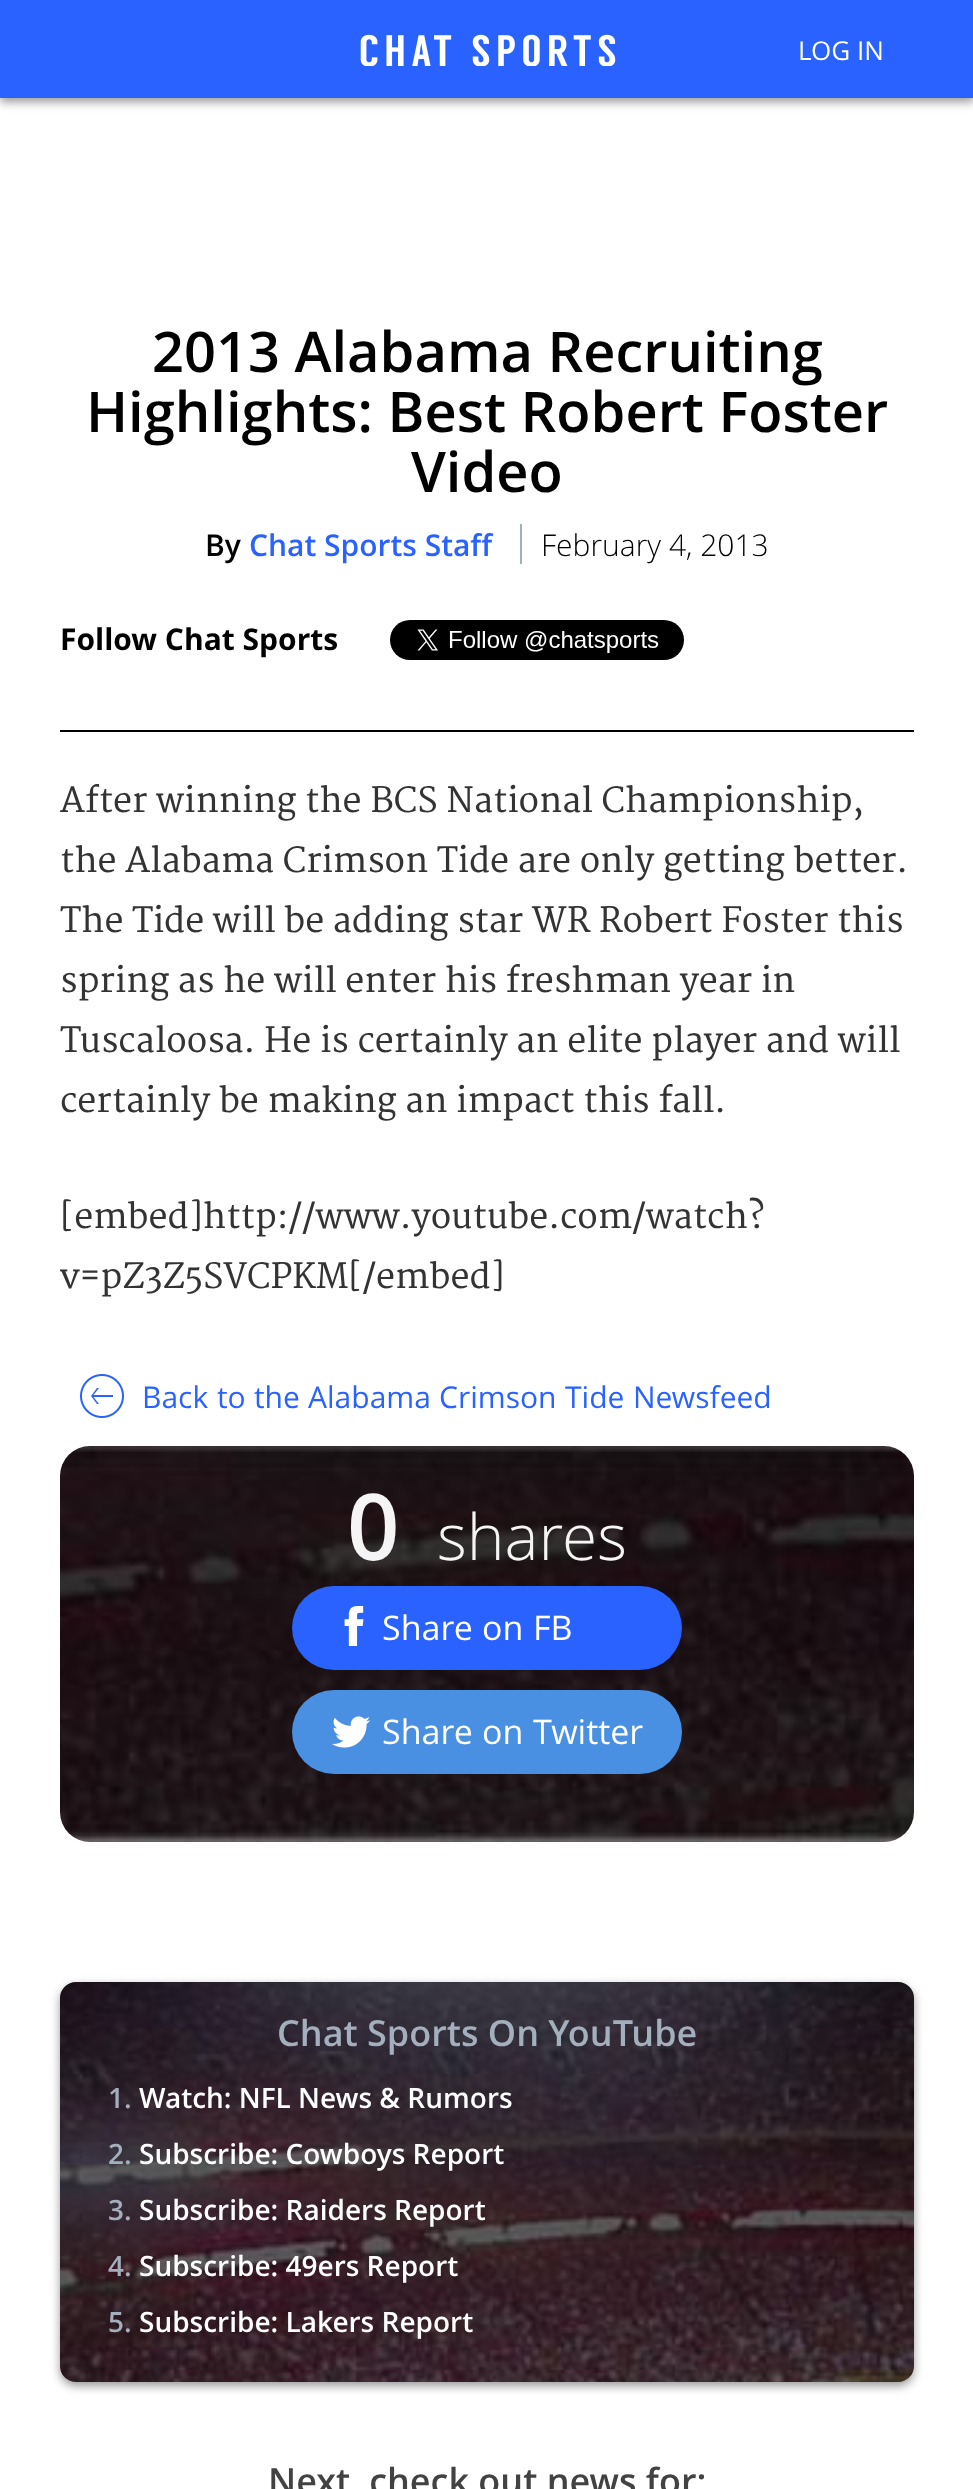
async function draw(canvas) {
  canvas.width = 973
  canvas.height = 2489
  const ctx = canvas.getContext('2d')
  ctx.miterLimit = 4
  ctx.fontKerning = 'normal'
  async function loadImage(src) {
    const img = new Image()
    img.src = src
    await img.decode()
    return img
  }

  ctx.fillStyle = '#fff'
  ctx.fillRect(0, 0, 973, 2489)
  ctx.fillStyle = '#00000066'
  ctx.filter = 'blur(5px)'
  ctx.beginPath()
  ctx.rect(0, 4, 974, 98)
  ctx.fill()
  ctx.filter = 'none'
  ctx.fillStyle = '#2962ff'
  ctx.fillRect(0, 0, 973, 98)
  ctx.drawImage(await loadImage('image0.png'), 360, 34, 256, 32)
  ctx.font = '26px Open Sans'
  ctx.fillStyle = '#fff'
  ctx.fillText('LOG', 798, 60)
  ctx.fillText('IN', 857, 60)
  ctx.font = '600 56px Open Sans'
  ctx.fillStyle = '#000'
  ctx.fillText('2013 Alabama Recruiting', 152, 372)
  ctx.fillText('Highlights: Best Robert Foster', 86, 432)
  ctx.fillText('Video', 411, 492)
  ctx.font = '600 30px Open Sans'
  ctx.fillText('By', 205, 556)
  ctx.fillStyle = '#2962ff'
  ctx.fillText('Chat Sports Staff', 249, 556)
  ctx.font = '300 30px Open Sans'
  ctx.fillStyle = '#000'
  ctx.fillText('February 4, 2013', 541, 556)
  ctx.fillStyle = '#a4afbd'
  ctx.fillRect(520, 524, 2, 40)
  ctx.fillStyle = '#000'
  ctx.fillRect(60, 730, 854, 2)
  ctx.font = 'bold 30px Open Sans'
  ctx.fillText('Follow Chat Sports', 60, 650)
  ctx.drawImage(await loadImage('image1.png'), 390, 620, 294, 40)
  ctx.font = '34px Merriweather'
  ctx.fillStyle = '#333'
  ctx.fillText('After winning the BCS National Championship,', 60, 812)
  ctx.fillText('the Alabama Crimson Tide are only getting better.', 60, 872)
  ctx.fillText('The Tide will be adding star WR Robert Foster this', 60, 932)
  ctx.fillText('spring as he will enter his freshman year in', 60, 992)
  ctx.fillText('Tuscaloosa. He is certainly an elite player and will', 60, 1052)
  ctx.fillText('certainly be making an impact this fall.', 60, 1112)
  ctx.fillText('[embed]http://www.youtube.com/watch?', 60, 1228)
  ctx.fillText('v=pZ3Z5SVCPKM[/embed]', 60, 1288)
  ctx.drawImage(await loadImage('image2.png'), 80, 1374, 44, 44)
  ctx.font = '30px Open Sans'
  ctx.fillStyle = '#2962ff'
  ctx.fillText('Back', 142, 1408)
  ctx.fillText('to', 217, 1408)
  ctx.fillText('the', 254, 1408)
  ctx.fillText('Alabama', 308, 1408)
  ctx.fillText('Crimson', 439, 1408)
  ctx.fillText('Tide', 565, 1408)
  ctx.fillText('Newsfeed', 633, 1408)
  ctx.drawImage(await loadImage('image3.png'), 60, 1446, 854, 396)
  ctx.font = '600 92px Open Sans'
  ctx.fillStyle = '#f5f5f5'
  ctx.fillText('0', 347, 1560)
  ctx.font = '300 64px Open Sans'
  ctx.fillText('shares', 437, 1560)
  ctx.fillStyle = '#2962ff'
  ctx.beginPath()
  ctx.roundRect(292, 1586, 390, 84, 42)
  ctx.fill()
  ctx.drawImage(await loadImage('image4.png'), 344, 1606, 20, 40)
  ctx.font = '34px Open Sans'
  ctx.fillStyle = '#fff'
  ctx.fillText('Share', 382, 1640)
  ctx.fillText('on', 482, 1640)
  ctx.fillText('FB', 533, 1640)
  ctx.fillStyle = '#4a90e2'
  ctx.beginPath()
  ctx.roundRect(292, 1690, 390, 84, 42)
  ctx.fill()
  ctx.drawImage(await loadImage('image5.png'), 332, 1716, 38, 32)
  ctx.fillStyle = '#fff'
  ctx.fillText('Share', 382, 1744)
  ctx.fillText('on', 482, 1744)
  ctx.fillText('Twitter', 533, 1744)
  ctx.fillStyle = '#00000066'
  ctx.filter = 'blur(5px)'
  ctx.beginPath()
  ctx.roundRect(60, 1986, 854, 400, 16)
  ctx.fill()
  ctx.filter = 'none'
  ctx.drawImage(await loadImage('image6.png'), 60, 1982, 854, 400)
  ctx.font = '600 36px Open Sans'
  ctx.fillStyle = '#a4afbd'
  ctx.fillText('Chat Sports On YouTube', 277, 2046)
  ctx.font = '600 28px Open Sans'
  ctx.fillText('1.', 108, 2108)
  ctx.fillStyle = '#fff'
  ctx.fillText('Watch: NFL News & Rumors', 139, 2108)
  ctx.fillStyle = '#a4afbd'
  ctx.fillText('2.', 108, 2164)
  ctx.fillStyle = '#fff'
  ctx.fillText('Subscribe: Cowboys Report', 139, 2164)
  ctx.fillStyle = '#a4afbd'
  ctx.fillText('3.', 108, 2220)
  ctx.fillStyle = '#fff'
  ctx.fillText('Subscribe: Raiders Report', 139, 2220)
  ctx.fillStyle = '#a4afbd'
  ctx.fillText('4.', 108, 2276)
  ctx.fillStyle = '#fff'
  ctx.fillText('Subscribe: 49ers Report', 139, 2276)
  ctx.fillStyle = '#a4afbd'
  ctx.fillText('5.', 108, 2332)
  ctx.fillStyle = '#fff'
  ctx.fillText('Subscribe: Lakers Report', 139, 2332)
  ctx.font = '600 36px Open Sans'
  ctx.fillStyle = '#424242'
  ctx.fillText('Next, check out news for:', 268, 2494)
}

draw(document.querySelector('canvas'))
